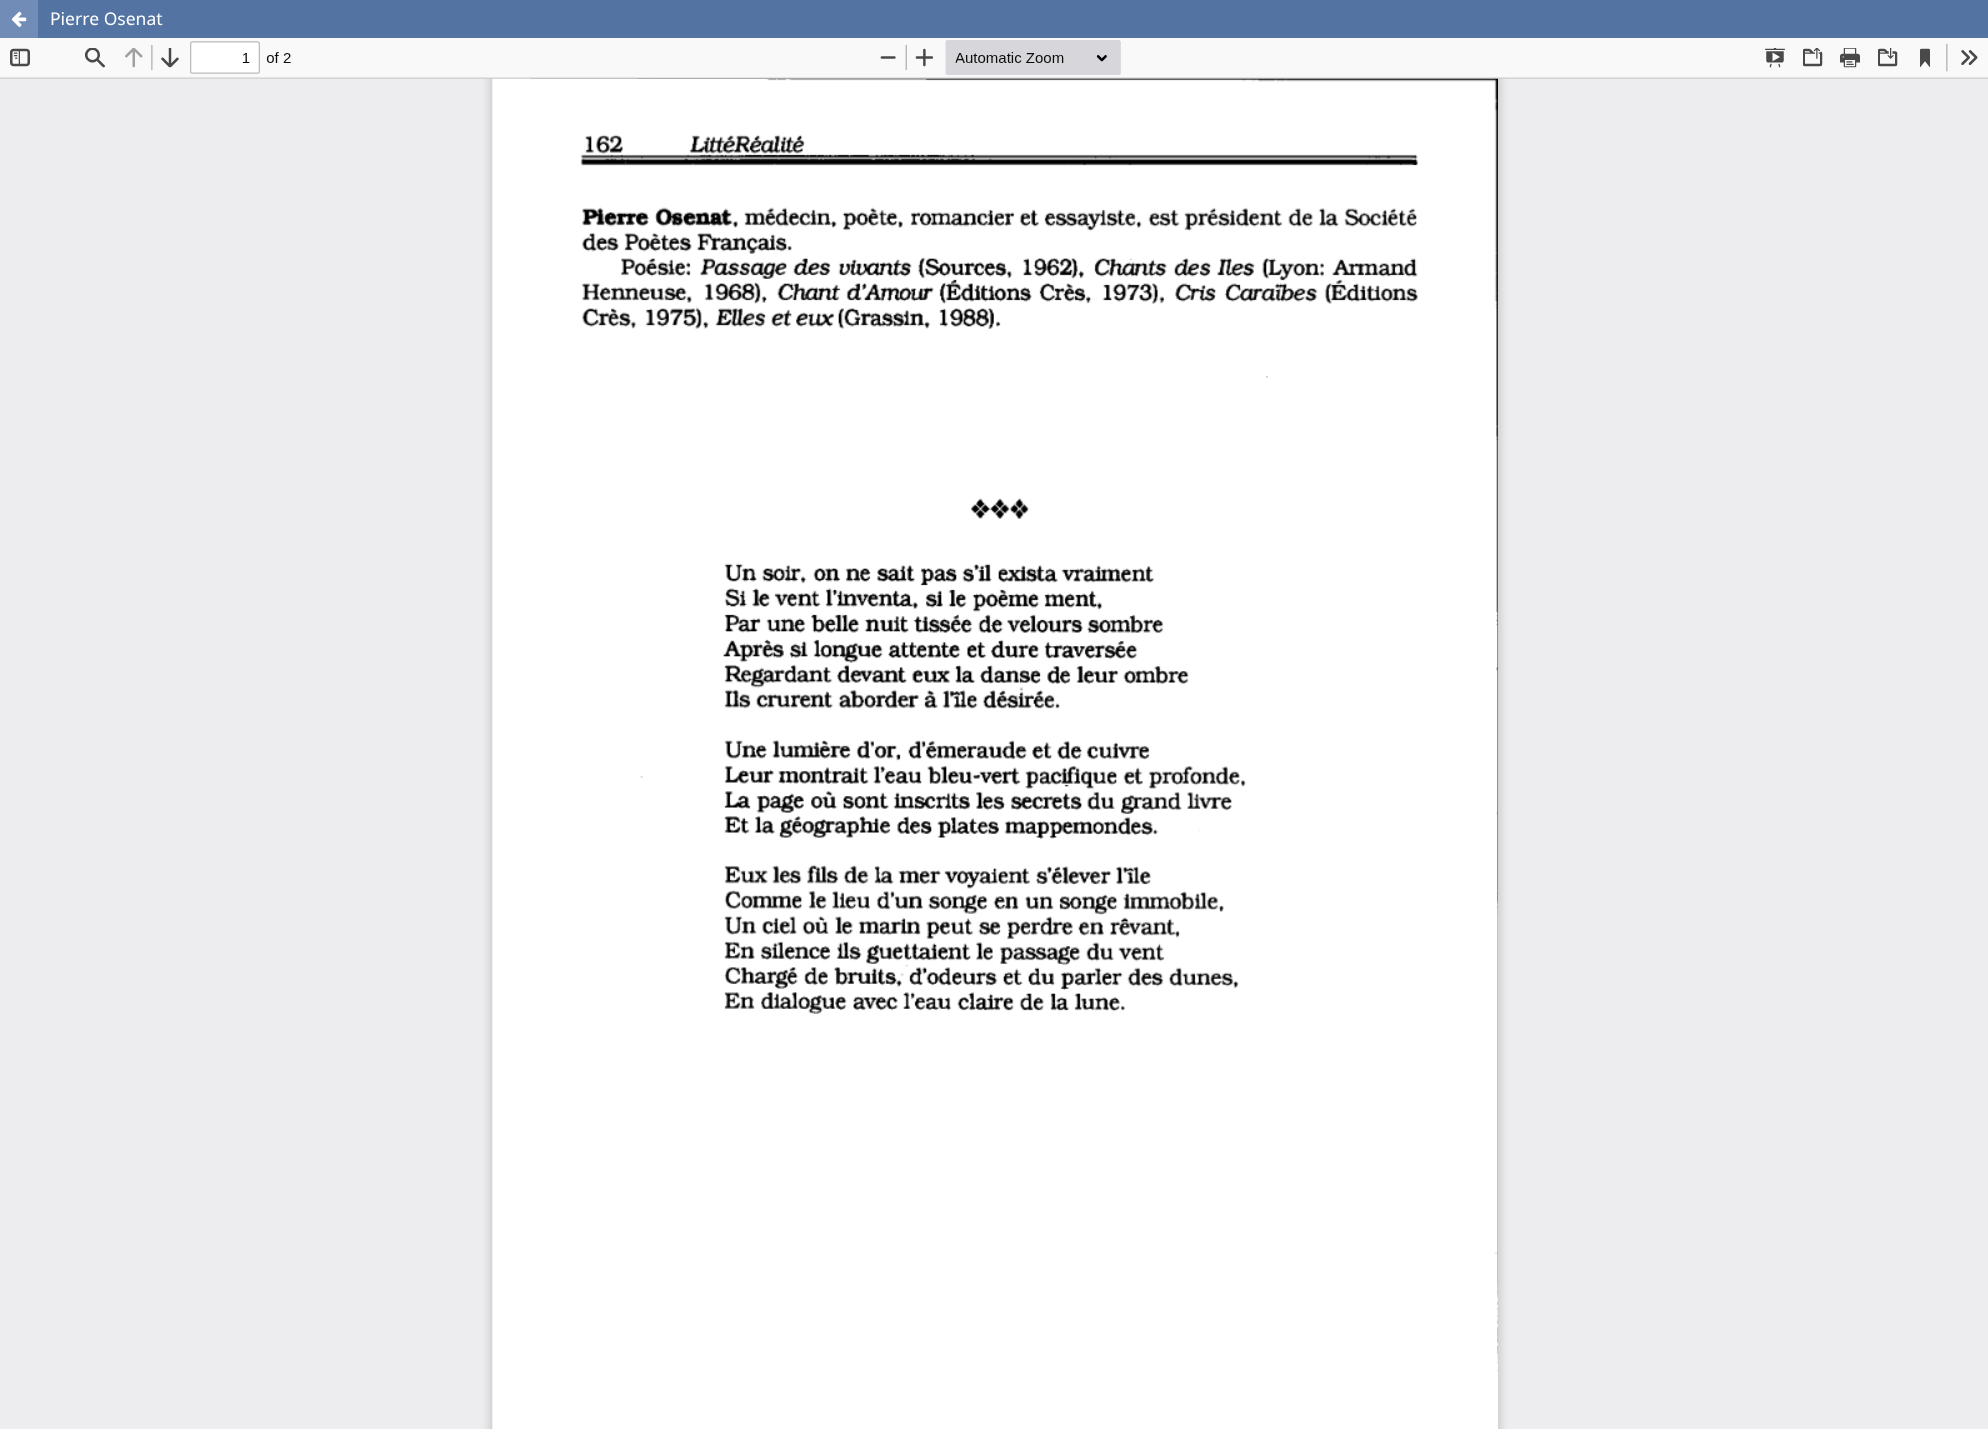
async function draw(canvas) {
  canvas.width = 1988
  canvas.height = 1429
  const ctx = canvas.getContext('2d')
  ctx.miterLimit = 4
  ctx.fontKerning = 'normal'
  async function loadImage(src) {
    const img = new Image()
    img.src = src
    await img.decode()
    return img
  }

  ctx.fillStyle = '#fff'
  ctx.fillRect(0, 0, 1988, 1429)
  ctx.fillStyle = '#5373a2'
  ctx.fillRect(38, 0, 1950, 38)
  ctx.fillStyle = '#718db7'
  ctx.fillRect(0, 0, 38, 38)
  ctx.drawImage(await loadImage('image0.png'), 11, 11, 16, 16)
  ctx.font = '17.5px Noto Sans'
  ctx.fillStyle = '#fff'
  ctx.fillText('Pierre Osenat', 50, 25)
  ctx.drawImage(await loadImage('image1.png'), 0, 38, 1988, 1391)
}

draw(document.querySelector('canvas'))
